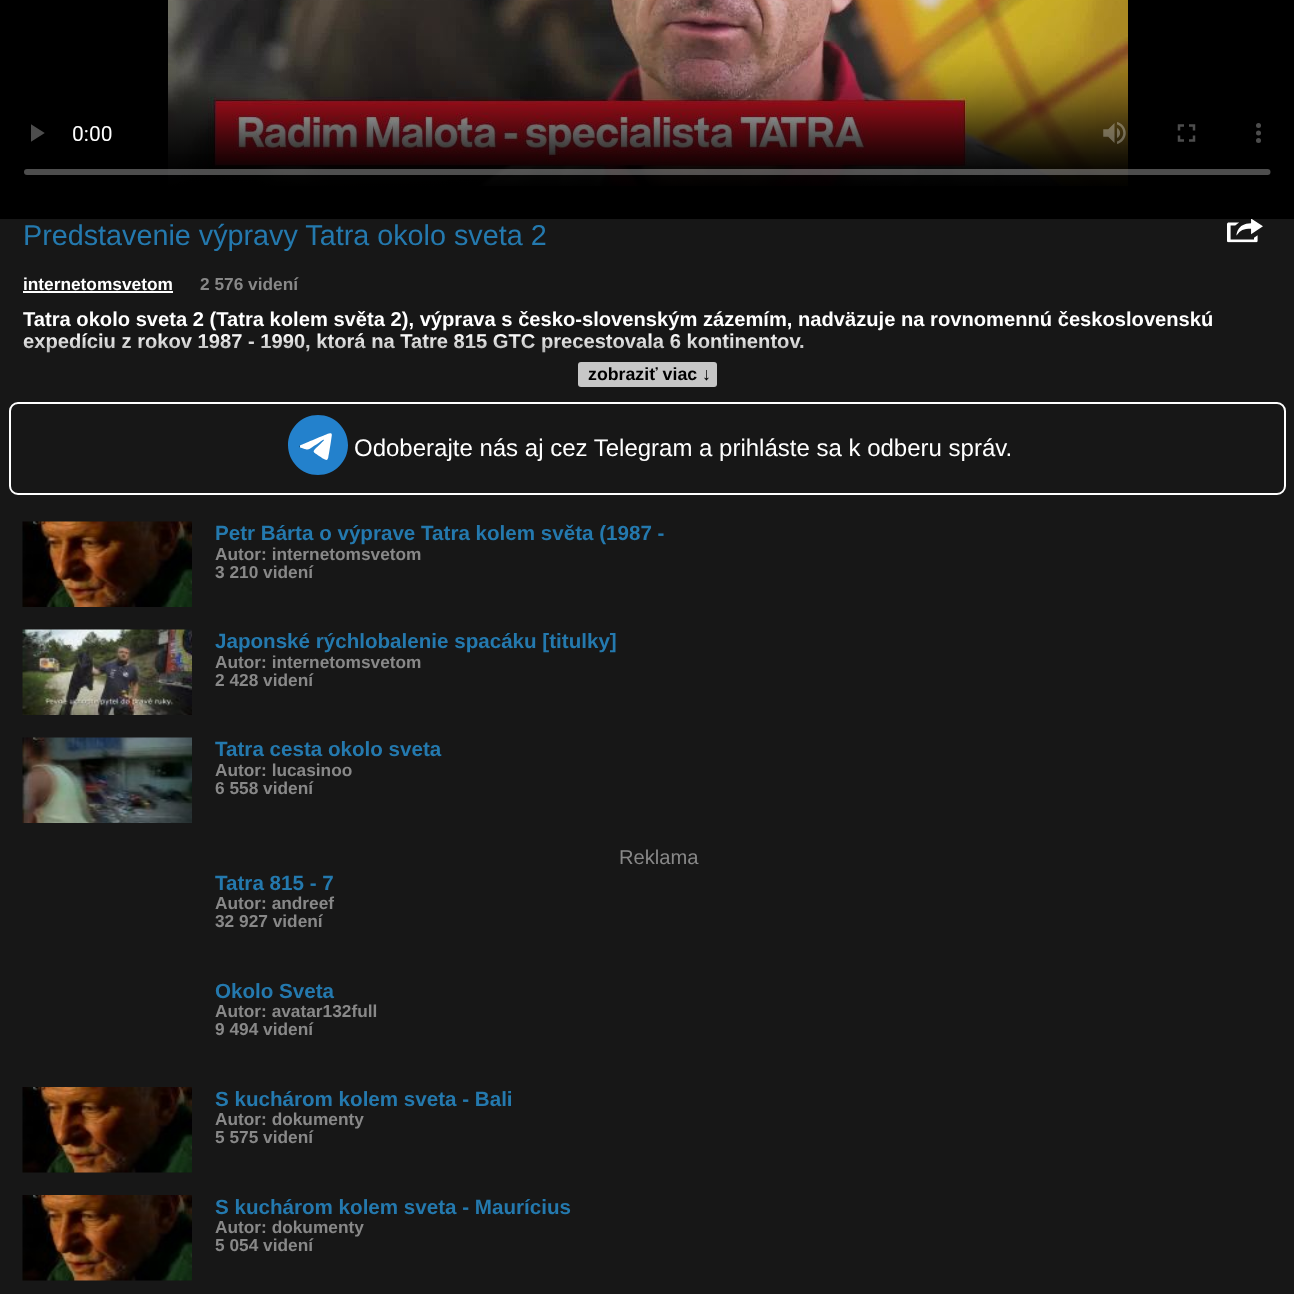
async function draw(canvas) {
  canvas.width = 1294
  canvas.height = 1294
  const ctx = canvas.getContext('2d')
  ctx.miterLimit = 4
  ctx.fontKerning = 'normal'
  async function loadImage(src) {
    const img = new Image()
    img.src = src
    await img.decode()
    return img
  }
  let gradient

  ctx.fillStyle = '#000'
  ctx.fillRect(0, 0, 1294, 1294)
  ctx.drawImage(await loadImage('image0.png'), 24, 0, 1247, 186)
  ctx.fillStyle = '#171717'
  ctx.fillRect(0, 219, 1294, 1075)
  ctx.font = '28.75px Liberation Sans'
  ctx.fillStyle = '#2479ae'
  ctx.fillText('Predstavenie výpravy Tatra okolo sveta 2', 23, 245)
  ctx.drawImage(await loadImage('image1.png'), 1227, 219, 36, 24)
  ctx.font = 'bold 17.3px Liberation Sans'
  ctx.fillStyle = '#fff'
  ctx.fillText('internetomsvetom', 23, 290)
  ctx.fillRect(23, 291, 150, 2)
  ctx.fillStyle = '#888'
  ctx.fillText('2 576 videní', 200, 290)
  ctx.font = 'bold 20.15px Liberation Sans'
  ctx.fillStyle = '#fff'
  ctx.fillText('Tatra okolo sveta 2 (Tatra kolem světa 2), výprava s česko-slovenským zázemím, nadväzuje na rovnomennú československú', 23, 326)
  ctx.fillText('expedíciu z rokov 1987 - 1990, ktorá na Tatre 815 GTC precestovala 6 kontinentov.', 23, 348)
  gradient = ctx.createLinearGradient(647, 334, 647, 387)
  gradient.addColorStop(0, '#17171700')
  gradient.addColorStop(1, '#171717')
  ctx.fillStyle = gradient
  ctx.fillRect(23, 335, 781, 18)
  ctx.fillStyle = '#c7c7c7'
  ctx.beginPath()
  ctx.roundRect(578, 362, 139, 25, 3)
  ctx.fill()
  ctx.font = 'bold 17.75px Liberation Sans'
  ctx.fillStyle = '#000'
  ctx.fillText('zobraziť viac ↓', 588, 380)
  ctx.beginPath()
  ctx.roundRect(10, 403, 1275, 91, 8)
  ctx.strokeStyle = '#fff'
  ctx.lineWidth = 2
  ctx.stroke()
  ctx.drawImage(await loadImage('image2.png'), 288, 415, 60, 60)
  ctx.font = '24px Liberation Sans'
  ctx.fillStyle = '#fff'
  ctx.fillText('Odoberajte nás aj cez Telegram a prihláste sa k odberu správ.', 354, 456)
  ctx.drawImage(await loadImage('image3.png'), 22, 521, 170, 86)
  ctx.font = 'bold 20.6px Liberation Sans'
  ctx.fillStyle = '#2479ae'
  ctx.fillText('Petr Bárta o výprave Tatra kolem světa (1987 -', 215, 540)
  ctx.font = 'bold 17.3px Liberation Sans'
  ctx.fillStyle = '#888'
  ctx.fillText('Autor: internetomsvetom', 215, 560)
  ctx.fillText('3 210 videní', 215, 578)
  ctx.drawImage(await loadImage('image4.png'), 22, 629, 170, 86)
  ctx.font = 'bold 20.6px Liberation Sans'
  ctx.fillStyle = '#2479ae'
  ctx.fillText('Japonské rýchlobalenie spacáku [titulky]', 215, 648)
  ctx.font = 'bold 17.3px Liberation Sans'
  ctx.fillStyle = '#888'
  ctx.fillText('Autor: internetomsvetom', 215, 668)
  ctx.fillText('2 428 videní', 215, 686)
  ctx.drawImage(await loadImage('image5.png'), 22, 737, 170, 86)
  ctx.font = 'bold 20.6px Liberation Sans'
  ctx.fillStyle = '#2479ae'
  ctx.fillText('Tatra cesta okolo sveta', 215, 756)
  ctx.font = 'bold 17.3px Liberation Sans'
  ctx.fillStyle = '#888'
  ctx.fillText('Autor: lucasinoo', 215, 776)
  ctx.fillText('6 558 videní', 215, 794)
  ctx.font = '20.15px Liberation Sans'
  ctx.fillText('Reklama', 619, 864)
  ctx.font = 'bold 20.6px Liberation Sans'
  ctx.fillStyle = '#2479ae'
  ctx.fillText('Tatra 815 - 7', 215, 890)
  ctx.font = 'bold 17.3px Liberation Sans'
  ctx.fillStyle = '#888'
  ctx.fillText('Autor: andreef', 215, 909)
  ctx.fillText('32 927 videní', 215, 927)
  ctx.font = 'bold 20.6px Liberation Sans'
  ctx.fillStyle = '#2479ae'
  ctx.fillText('Okolo Sveta', 215, 998)
  ctx.font = 'bold 17.3px Liberation Sans'
  ctx.fillStyle = '#888'
  ctx.fillText('Autor: avatar132full', 215, 1017)
  ctx.fillText('9 494 videní', 215, 1035)
  ctx.drawImage(await loadImage('image6.png'), 22, 1087, 170, 86)
  ctx.font = 'bold 20.6px Liberation Sans'
  ctx.fillStyle = '#2479ae'
  ctx.fillText('S kuchárom kolem sveta - Bali', 215, 1106)
  ctx.font = 'bold 17.3px Liberation Sans'
  ctx.fillStyle = '#888'
  ctx.fillText('Autor: dokumenty', 215, 1125)
  ctx.fillText('5 575 videní', 215, 1143)
  ctx.drawImage(await loadImage('image6.png'), 22, 1195, 170, 86)
  ctx.font = 'bold 20.6px Liberation Sans'
  ctx.fillStyle = '#2479ae'
  ctx.fillText('S kuchárom kolem sveta - Maurícius', 215, 1214)
  ctx.font = 'bold 17.3px Liberation Sans'
  ctx.fillStyle = '#888'
  ctx.fillText('Autor: dokumenty', 215, 1233)
  ctx.fillText('5 054 videní', 215, 1251)
}

draw(document.querySelector('canvas'))
